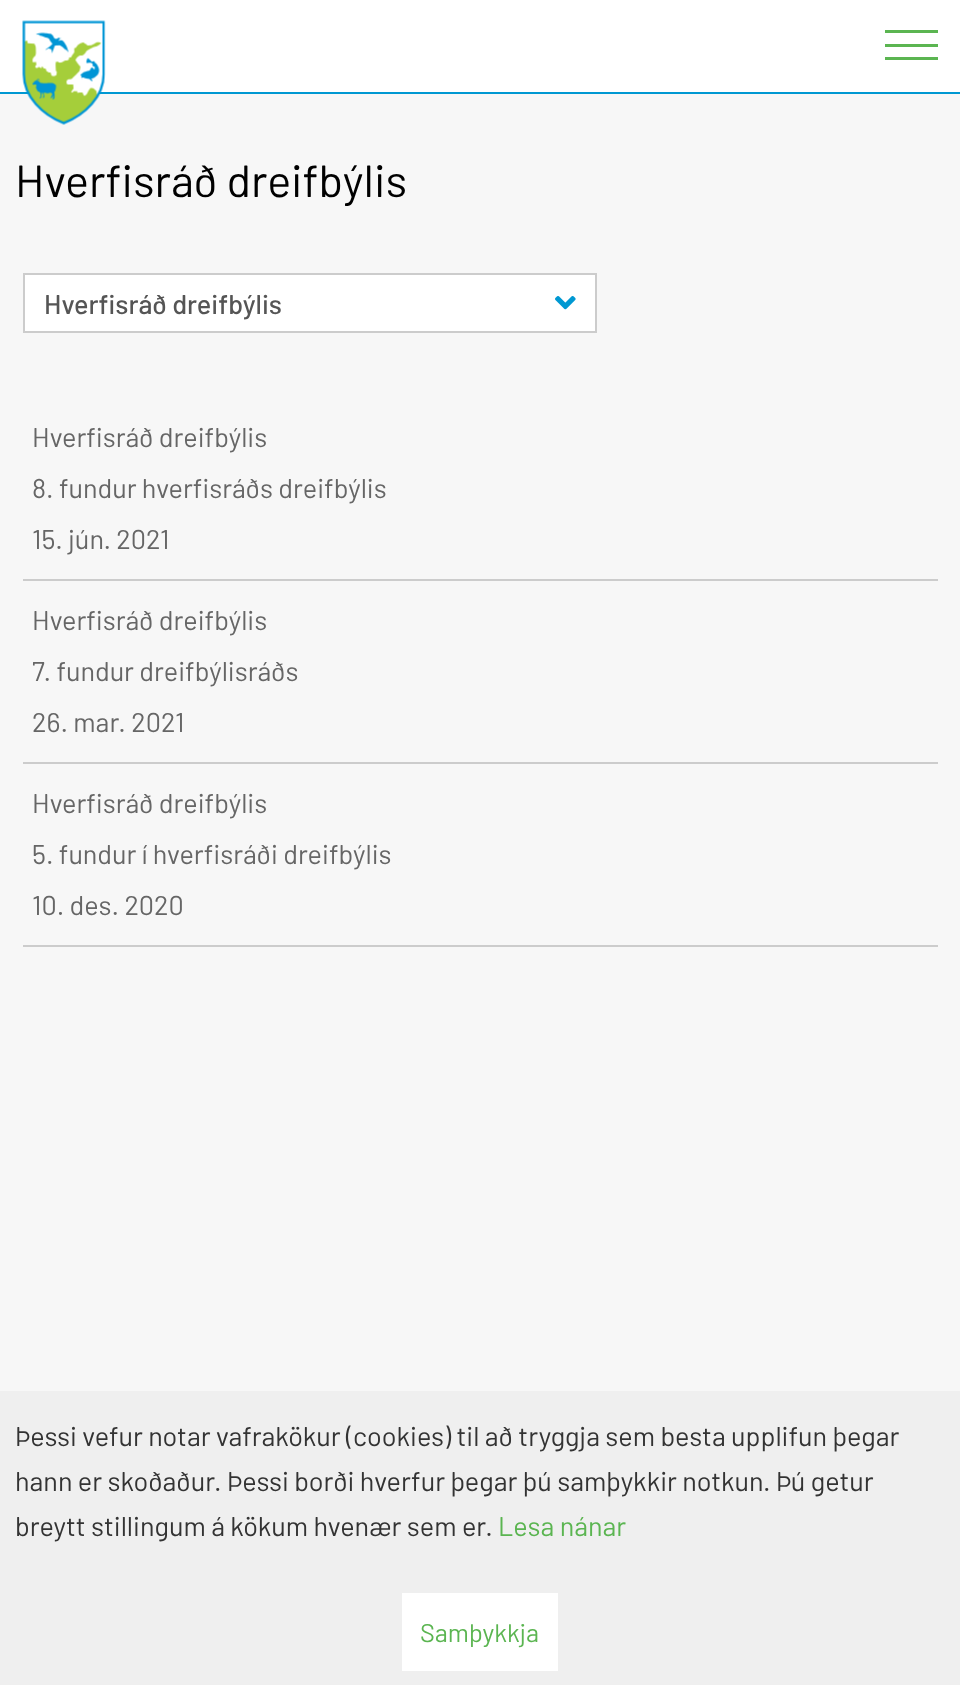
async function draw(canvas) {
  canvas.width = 960
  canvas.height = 1685
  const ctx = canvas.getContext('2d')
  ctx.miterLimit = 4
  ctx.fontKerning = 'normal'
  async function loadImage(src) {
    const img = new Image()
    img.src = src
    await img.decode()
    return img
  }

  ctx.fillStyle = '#f7f7f7'
  ctx.fillRect(0, 0, 960, 1685)
  ctx.fillStyle = '#fff'
  ctx.fillRect(0, 0, 960, 92)
  ctx.fillStyle = '#0098d2'
  ctx.fillRect(0, 92, 960, 2)
  ctx.drawImage(await loadImage('image0.png'), 22, 20, 84, 105)
  ctx.fillStyle = '#5bb551'
  ctx.fillRect(885, 30, 53, 3)
  ctx.fillRect(885, 44, 53, 3)
  ctx.fillRect(885, 57, 53, 3)
  ctx.font = '45px Barlow'
  ctx.fillStyle = '#000'
  ctx.fillText('Hverfisráð dreifbýlis', 15, 197)
  ctx.fillStyle = '#fff'
  ctx.beginPath()
  ctx.rect(24, 274, 572, 58)
  ctx.fill()
  ctx.strokeStyle = '#ccc'
  ctx.lineWidth = 2
  ctx.stroke()
  ctx.font = '500 27px Barlow'
  ctx.fillStyle = '#555'
  ctx.fillText('Hverfisráð dreifbýlis', 44, 314)
  ctx.drawImage(await loadImage('image1.png'), 555, 296, 21, 14)
  ctx.fillStyle = '#ccc'
  ctx.fillRect(23, 579, 915, 2)
  ctx.font = '27px Barlow'
  ctx.fillStyle = '#666'
  ctx.fillText('Hverfisráð dreifbýlis', 32, 447)
  ctx.fillText('8. fundur hverfisráðs dreifbýlis', 32, 498)
  ctx.fillText('15. jún. 2021', 32, 549)
  ctx.fillStyle = '#ccc'
  ctx.fillRect(23, 762, 915, 2)
  ctx.fillStyle = '#666'
  ctx.fillText('Hverfisráð dreifbýlis', 32, 630)
  ctx.fillText('7. fundur dreifbýlisráðs', 32, 681)
  ctx.fillText('26. mar. 2021', 32, 732)
  ctx.fillStyle = '#ccc'
  ctx.fillRect(23, 945, 915, 2)
  ctx.fillStyle = '#666'
  ctx.fillText('Hverfisráð dreifbýlis', 32, 813)
  ctx.fillText('5. fundur í hverfisráði dreifbýlis', 32, 864)
  ctx.fillText('10. des. 2020', 32, 915)
  ctx.fillStyle = '#efefef'
  ctx.fillRect(0, 1391, 960, 294)
  ctx.fillStyle = '#333'
  ctx.fillText('Þessi vefur notar vafrakökur (cookies) til að tryggja sem besta upplifun þegar', 15, 1446)
  ctx.fillText('hann er skoðaður. Þessi borði hverfur þegar þú samþykkir notkun. Þú getur', 15, 1491)
  ctx.fillText('breytt stillingum á kökum hvenær sem er.', 15, 1536)
  ctx.fillStyle = '#5bb551'
  ctx.fillText('Lesa nánar', 498, 1536)
  ctx.fillStyle = '#fff'
  ctx.fillRect(402, 1593, 156, 78)
  ctx.font = '25.5px Barlow'
  ctx.fillStyle = '#5bb551'
  ctx.fillText('Samþykkja', 420, 1642)
}

draw(document.querySelector('canvas'))
